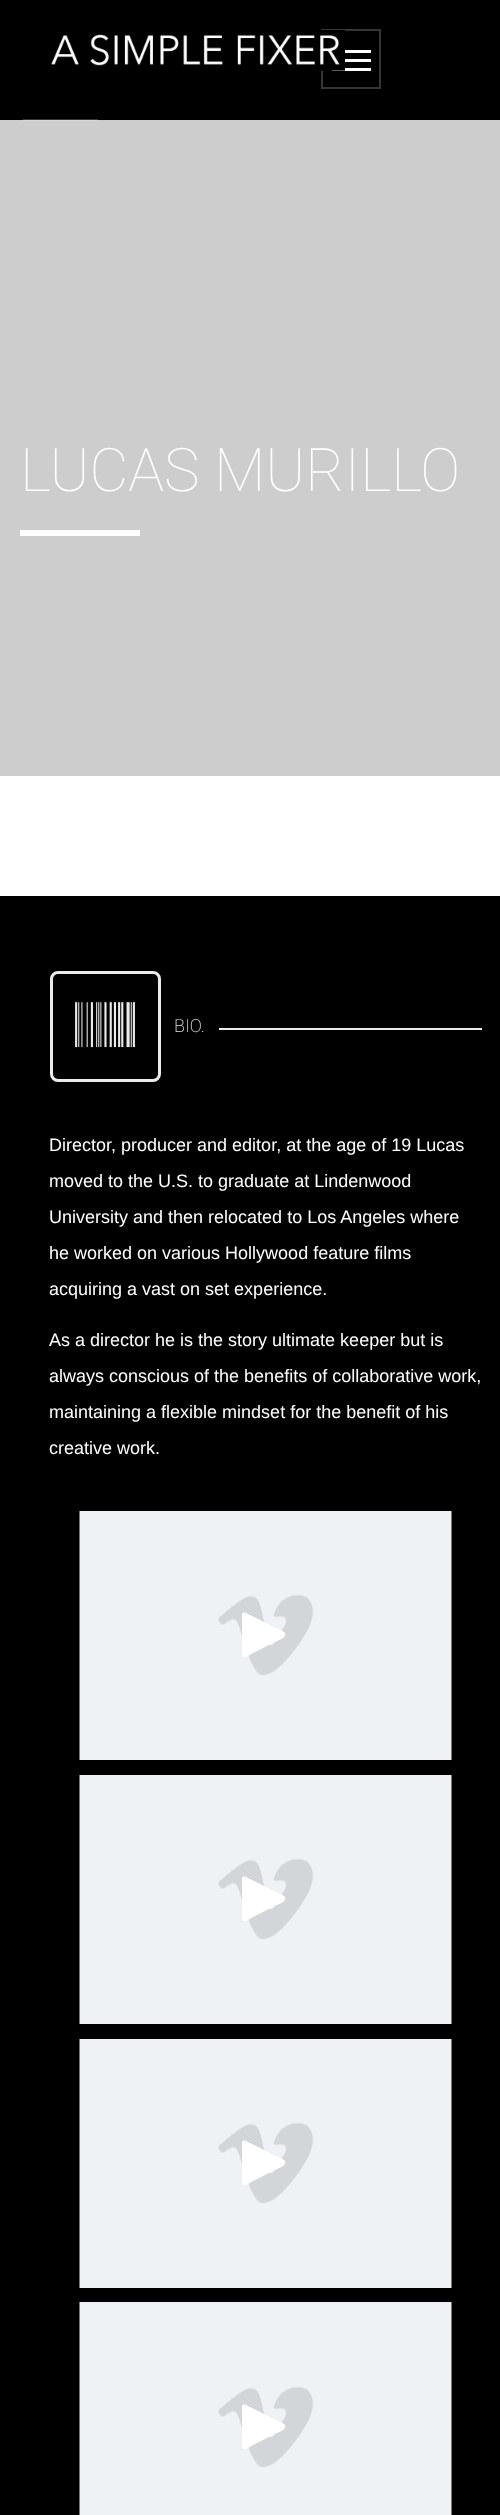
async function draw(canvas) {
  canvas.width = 500
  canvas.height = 2515
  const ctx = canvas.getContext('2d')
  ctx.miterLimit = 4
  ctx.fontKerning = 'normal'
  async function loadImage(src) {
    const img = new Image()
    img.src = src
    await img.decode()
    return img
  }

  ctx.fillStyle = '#cdcdcd'
  ctx.fillRect(0, 0, 500, 2515)
  ctx.fillStyle = '#000'
  ctx.fillRect(0, 0, 500, 120)
  ctx.fillStyle = '#363636'
  ctx.fillRect(23, 119, 75, 1)
  ctx.strokeStyle = '#363636'
  ctx.lineWidth = 2
  ctx.strokeRect(322, 30, 58, 58)
  ctx.fillStyle = '#fff'
  ctx.fillRect(332, 68, 39, 3)
  ctx.drawImage(await loadImage('image0.png'), 51, 30, 294, 41)
  ctx.fillRect(345, 50, 26, 3)
  ctx.fillRect(345, 59, 26, 3)
  ctx.fillStyle = '#d8d8d8'
  ctx.fillRect(23, 120, 75, 1)
  ctx.font = '100 60px Roboto'
  ctx.fillStyle = '#fff'
  ctx.fillText('LUCAS MURILLO', 20, 491)
  ctx.fillRect(20, 530, 120, 6)
  ctx.fillRect(0, 776, 500, 120)
  ctx.fillStyle = '#000'
  ctx.fillRect(0, 896, 500, 1619)
  ctx.beginPath()
  ctx.roundRect(51.5, 972.5, 108, 108, 6.5)
  ctx.strokeStyle = '#ebebeb'
  ctx.lineWidth = 3
  ctx.stroke()
  ctx.drawImage(await loadImage('image1.png'), 75, 1002, 60, 46)
  ctx.font = '200 18px Roboto'
  ctx.fillStyle = '#e2e2e2'
  ctx.fillText('BIO.', 174, 1032)
  ctx.fillStyle = '#ebebeb'
  ctx.fillRect(219, 1028, 263, 2)
  ctx.font = '18px Liberation Sans'
  ctx.fillStyle = '#fff'
  ctx.fillText('Director, producer and editor, at the age of 19 Lucas', 49, 1151)
  ctx.fillText('moved to the U.S. to graduate at Lindenwood', 49, 1187)
  ctx.fillText('University and then relocated to Los Angeles where', 49, 1223)
  ctx.fillText('he worked on various Hollywood feature films', 49, 1259)
  ctx.fillText('acquiring a vast on set experience.', 49, 1295)
  ctx.fillText('As a director he is the story ultimate keeper but is', 49, 1346)
  ctx.fillText('always conscious of the benefits of collaborative work,', 49, 1382)
  ctx.fillText('maintaining a flexible mindset for the benefit of his', 49, 1418)
  ctx.fillText('creative work.', 49, 1454)
  ctx.drawImage(await loadImage('image2.png'), 79, 1511, 373, 249)
  ctx.save()
  ctx.beginPath()
  ctx.rect(242, 1611, 48, 48)
  ctx.clip()
  ctx.beginPath()
  ctx.moveTo(246, 1613)
  ctx.lineTo(284, 1632)
  ctx.bezierCurveTo(289, 1637, 279, 1640, 277, 1641)
  ctx.lineTo(253, 1653)
  ctx.bezierCurveTo(251, 1654, 246, 1658, 244, 1657)
  ctx.bezierCurveTo(240, 1655, 242, 1650, 242, 1647)
  ctx.lineTo(242, 1623)
  ctx.bezierCurveTo(242, 1621, 240, 1610, 246, 1613)
  ctx.closePath()
  ctx.fill()
  ctx.restore()
  ctx.drawImage(await loadImage('image2.png'), 79, 1775, 373, 249)
  ctx.save()
  ctx.beginPath()
  ctx.rect(242, 1875, 48, 48)
  ctx.clip()
  ctx.beginPath()
  ctx.moveTo(246, 1877)
  ctx.lineTo(284, 1896)
  ctx.bezierCurveTo(289, 1901, 279, 1904, 277, 1905)
  ctx.lineTo(253, 1917)
  ctx.bezierCurveTo(251, 1918, 246, 1922, 244, 1921)
  ctx.bezierCurveTo(240, 1919, 242, 1914, 242, 1911)
  ctx.lineTo(242, 1887)
  ctx.bezierCurveTo(242, 1885, 240, 1874, 246, 1877)
  ctx.closePath()
  ctx.fill()
  ctx.restore()
  ctx.drawImage(await loadImage('image2.png'), 79, 2039, 373, 249)
  ctx.save()
  ctx.beginPath()
  ctx.rect(242, 2139, 48, 48)
  ctx.clip()
  ctx.beginPath()
  ctx.moveTo(246, 2141)
  ctx.lineTo(284, 2160)
  ctx.bezierCurveTo(289, 2165, 279, 2168, 277, 2169)
  ctx.lineTo(253, 2181)
  ctx.bezierCurveTo(251, 2182, 246, 2186, 244, 2185)
  ctx.bezierCurveTo(240, 2183, 242, 2178, 242, 2175)
  ctx.lineTo(242, 2151)
  ctx.bezierCurveTo(242, 2149, 240, 2138, 246, 2141)
  ctx.closePath()
  ctx.fill()
  ctx.restore()
  ctx.drawImage(await loadImage('image3.png'), 79, 2302, 373, 213)
  ctx.save()
  ctx.beginPath()
  ctx.rect(242, 2403, 48, 48)
  ctx.clip()
  ctx.beginPath()
  ctx.moveTo(246, 2405)
  ctx.lineTo(284, 2424)
  ctx.bezierCurveTo(289, 2429, 279, 2432, 277, 2433)
  ctx.lineTo(253, 2445)
  ctx.bezierCurveTo(251, 2446, 246, 2450, 244, 2449)
  ctx.bezierCurveTo(240, 2447, 242, 2442, 242, 2439)
  ctx.lineTo(242, 2415)
  ctx.bezierCurveTo(242, 2413, 240, 2402, 246, 2405)
  ctx.closePath()
  ctx.fill()
  ctx.restore()
}

draw(document.querySelector('canvas'))
